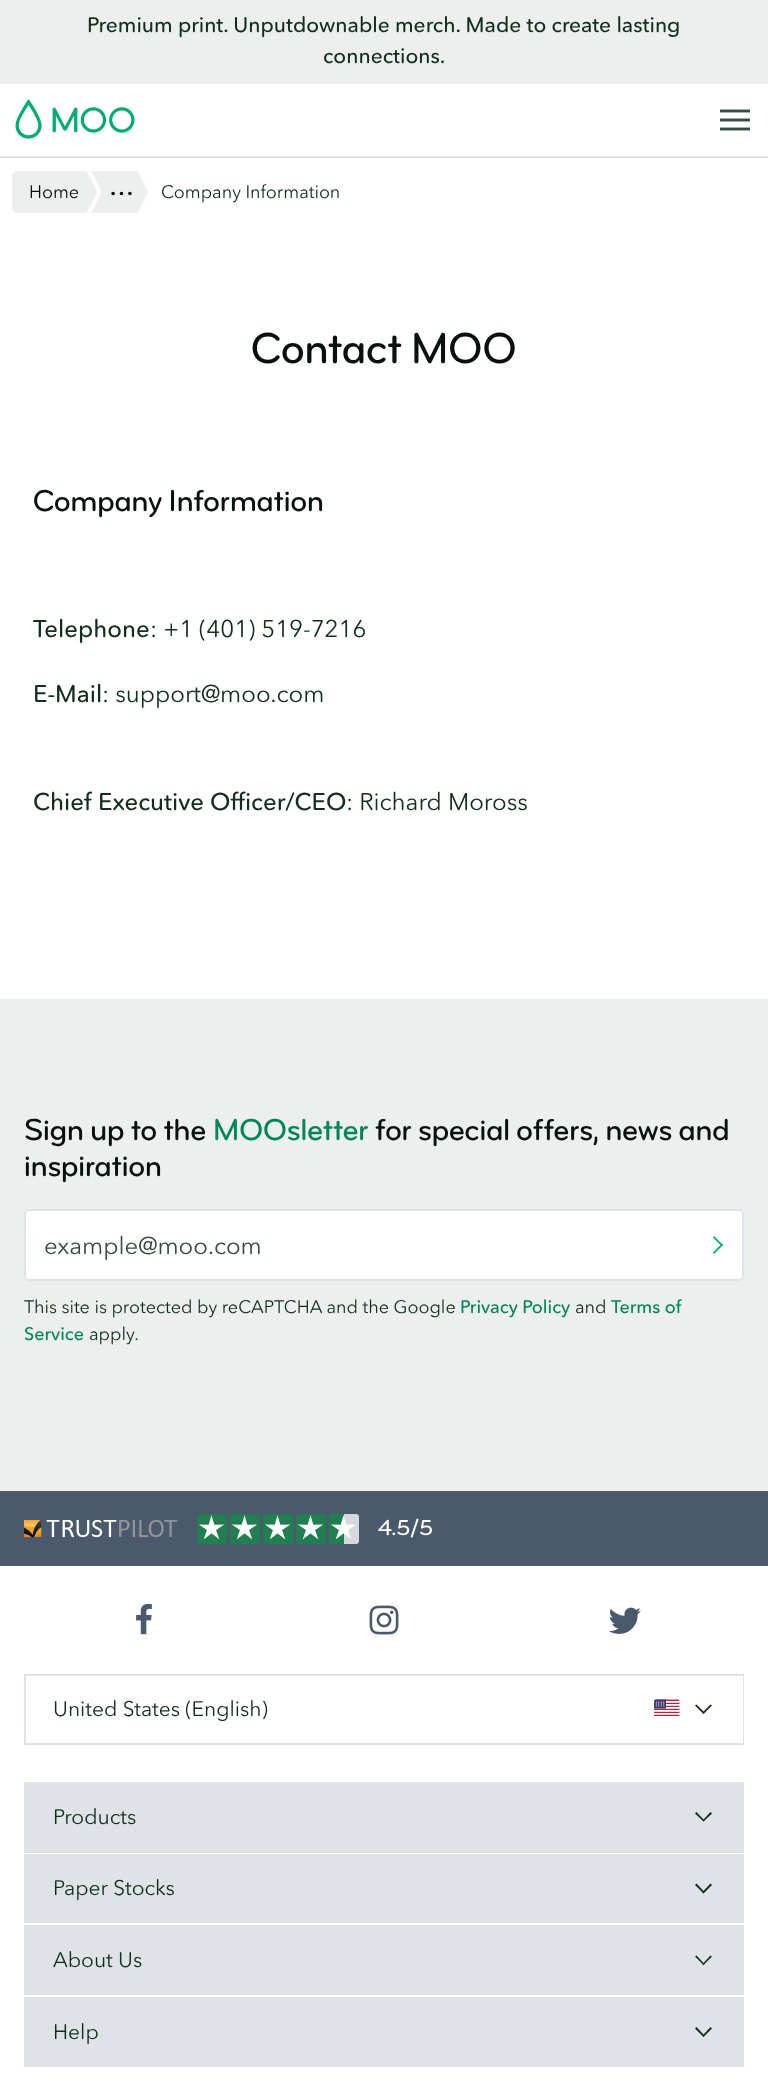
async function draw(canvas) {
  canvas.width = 768
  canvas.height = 2083
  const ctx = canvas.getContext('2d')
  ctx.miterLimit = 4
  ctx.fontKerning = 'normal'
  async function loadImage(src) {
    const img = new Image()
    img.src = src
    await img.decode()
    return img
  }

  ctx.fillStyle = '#fff'
  ctx.fillRect(0, 0, 768, 2083)
  ctx.fillStyle = '#ecefed'
  ctx.fillRect(0, 0, 768, 84)
  ctx.font = '21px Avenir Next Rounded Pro'
  ctx.fillStyle = '#122e1d'
  ctx.fillText('Premium print. Unputdownable merch. Made to create lasting', 87, 32)
  ctx.fillText('connections.', 323, 63)
  ctx.fillStyle = '#dfe3e7'
  ctx.fillRect(0, 156, 768, 2)
  ctx.drawImage(await loadImage('image0.png'), 15, 99, 120, 40)
  ctx.drawImage(await loadImage('image1.png'), 720, 109, 30, 22)
  ctx.fillStyle = '#ecefed'
  ctx.beginPath()
  ctx.roundRect(12, 171, 81, 42, [5, 0, 0, 5])
  ctx.fill()
  ctx.font = '300 18px Avenir Next Rounded Pro'
  ctx.fillStyle = '#07120c'
  ctx.fillText('Home', 29, 198)
  ctx.fillStyle = '#ecefed'
  ctx.beginPath()
  ctx.roundRect(93, 171, 51, 42, [0, 9, 9, 0])
  ctx.fill()
  ctx.save()
  ctx.beginPath()
  ctx.rect(83, 171, 18, 42)
  ctx.clip()
  ctx.beginPath()
  ctx.moveTo(48.5, 90)
  ctx.lineTo(99.5, 192)
  ctx.lineTo(48.5, 294)
  ctx.lineTo(-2.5, 192)
  ctx.closePath()
  ctx.strokeStyle = '#fff'
  ctx.lineWidth = 4.2
  ctx.stroke()
  ctx.restore()
  ctx.fillStyle = '#07120c'
  ctx.beginPath()
  ctx.arc(129.9, 193.5, 1.8, 0, 2 * Math.PI)
  ctx.fill()
  ctx.beginPath()
  ctx.arc(121.5, 193.5, 1.8, 0, 2 * Math.PI)
  ctx.fill()
  ctx.beginPath()
  ctx.arc(113.1, 193.5, 1.8, 0, 2 * Math.PI)
  ctx.fill()
  ctx.save()
  ctx.beginPath()
  ctx.rect(134, 171, 18, 42)
  ctx.clip()
  ctx.fillStyle = '#ecefed'
  ctx.beginPath()
  ctx.moveTo(100, 86)
  ctx.lineTo(153, 192)
  ctx.lineTo(100, 298)
  ctx.lineTo(47, 192)
  ctx.closePath()
  ctx.fill()
  ctx.beginPath()
  ctx.moveTo(99.5, 90)
  ctx.lineTo(150.5, 192)
  ctx.lineTo(99.5, 294)
  ctx.lineTo(48.5, 192)
  ctx.closePath()
  ctx.strokeStyle = '#fff'
  ctx.lineWidth = 4.2
  ctx.stroke()
  ctx.restore()
  ctx.fillStyle = '#122e1d'
  ctx.fillText('Company Information', 161, 198)
  ctx.font = '500 45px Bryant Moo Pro'
  ctx.fillStyle = '#07120c'
  ctx.fillText('Contact MOO', 251, 363)
  ctx.font = '500 31.5px Bryant Moo Pro'
  ctx.fillText('Company Information', 33, 511)
  ctx.font = '24px Avenir Next Rounded Pro'
  ctx.fillStyle = '#122e1d'
  ctx.fillText('Telephone', 33, 637)
  ctx.font = '300 24px Avenir Next Rounded Pro'
  ctx.fillText(': +1 (401) 519-7216', 150, 637)
  ctx.font = '24px Avenir Next Rounded Pro'
  ctx.fillText('E-Mail', 33, 702)
  ctx.font = '300 24px Avenir Next Rounded Pro'
  ctx.fillText(': support@moo.com', 102, 702)
  ctx.font = '24px Avenir Next Rounded Pro'
  ctx.fillText('Chief Executive Officer/CEO', 33, 810)
  ctx.font = '300 24px Avenir Next Rounded Pro'
  ctx.fillText(': Richard Moross', 346, 810)
  ctx.fillStyle = '#ecefed'
  ctx.fillRect(0, 999, 768, 492)
  ctx.font = '500 31.5px Bryant Moo Pro'
  ctx.fillStyle = '#07120c'
  ctx.fillText('Sign up to the', 24, 1140)
  ctx.fillStyle = '#008558'
  ctx.fillText('MOOsletter', 213, 1140)
  ctx.fillStyle = '#07120c'
  ctx.fillText('for special offers, news and', 375, 1140)
  ctx.fillText('inspiration', 24, 1176)
  ctx.fillStyle = '#fff'
  ctx.beginPath()
  ctx.roundRect(25, 1210, 718, 70, 4)
  ctx.fill()
  ctx.strokeStyle = '#dfe3e7'
  ctx.lineWidth = 2
  ctx.stroke()
  ctx.font = '300 24px Avenir Next Rounded Pro'
  ctx.fillStyle = '#364d3f'
  ctx.fillText('example@moo.com', 44, 1254)
  ctx.fillStyle = '#00ac73'
  ctx.beginPath()
  ctx.moveTo(722, 1246.5)
  ctx.lineTo(713, 1237.5)
  ctx.lineTo(714, 1236)
  ctx.lineTo(723, 1245)
  ctx.closePath()
  ctx.fill()
  ctx.beginPath()
  ctx.moveTo(723, 1245)
  ctx.lineTo(714, 1254)
  ctx.lineTo(713, 1252.5)
  ctx.lineTo(722, 1243.5)
  ctx.closePath()
  ctx.fill()
  ctx.font = '300 18px Avenir Next Rounded Pro'
  ctx.fillStyle = '#122e1d'
  ctx.fillText('This site is protected by reCAPTCHA and the Google', 24, 1313)
  ctx.font = '18px Avenir Next Rounded Pro'
  ctx.fillStyle = '#008558'
  ctx.fillText('Privacy Policy', 460, 1313)
  ctx.font = '300 18px Avenir Next Rounded Pro'
  ctx.fillStyle = '#122e1d'
  ctx.fillText('and', 575, 1313)
  ctx.font = '18px Avenir Next Rounded Pro'
  ctx.fillStyle = '#008558'
  ctx.fillText('Terms of', 611, 1313)
  ctx.fillText('Service', 24, 1340)
  ctx.font = '300 18px Avenir Next Rounded Pro'
  ctx.fillStyle = '#122e1d'
  ctx.fillText('apply.', 89, 1340)
  ctx.fillStyle = '#4b596d'
  ctx.fillRect(0, 1491, 768, 75)
  ctx.drawImage(await loadImage('image2.png'), 24, 1520, 153, 18)
  ctx.fillStyle = '#207e50'
  ctx.beginPath()
  ctx.roundRect(197, 1514, 30, 30, 3)
  ctx.fill()
  ctx.drawImage(await loadImage('image3.png'), 199, 1515, 25, 25)
  ctx.beginPath()
  ctx.roundRect(230, 1514, 30, 30, 3)
  ctx.fill()
  ctx.drawImage(await loadImage('image3.png'), 232, 1515, 25, 25)
  ctx.beginPath()
  ctx.roundRect(263, 1514, 30, 30, 3)
  ctx.fill()
  ctx.drawImage(await loadImage('image3.png'), 265, 1515, 25, 25)
  ctx.beginPath()
  ctx.roundRect(296, 1514, 30, 30, 3)
  ctx.fill()
  ctx.drawImage(await loadImage('image3.png'), 298, 1515, 25, 25)
  ctx.beginPath()
  ctx.roundRect(329, 1514, 15, 30, [3, 0, 0, 3])
  ctx.fill()
  ctx.fillStyle = '#d4d9de'
  ctx.beginPath()
  ctx.roundRect(344, 1514, 15, 30, [0, 3, 3, 0])
  ctx.fill()
  ctx.drawImage(await loadImage('image4.png'), 331, 1515, 25, 25)
  ctx.font = '500 22.5px Bryant Moo Pro'
  ctx.fillStyle = '#fff'
  ctx.fillText('4.5/5', 378, 1535)
  ctx.drawImage(await loadImage('image5.png'), 136, 1603, 16, 32)
  ctx.drawImage(await loadImage('image6.png'), 369, 1605, 30, 30)
  ctx.drawImage(await loadImage('image7.png'), 609, 1607, 32, 27)
  ctx.strokeRect(25, 1675, 718, 69)
  ctx.fillRect(742, 1676, 1, 67)
  ctx.font = '300 21px Avenir Next Rounded Pro'
  ctx.fillStyle = '#122e1d'
  ctx.fillText('United States (English)', 53, 1716)
  ctx.drawImage(await loadImage('image8.png'), 654, 1699, 26, 17)
  ctx.beginPath()
  ctx.moveTo(703.5, 1714)
  ctx.lineTo(695, 1705.5)
  ctx.lineTo(696.5, 1704.5)
  ctx.lineTo(704.5, 1712.5)
  ctx.closePath()
  ctx.fill()
  ctx.beginPath()
  ctx.moveTo(712, 1705.5)
  ctx.lineTo(703.5, 1714)
  ctx.lineTo(702.5, 1712.5)
  ctx.lineTo(710.5, 1704.5)
  ctx.closePath()
  ctx.fill()
  ctx.strokeRect(25, 1783, 718, 69)
  ctx.fillStyle = '#dfe3e7'
  ctx.fillRect(26, 1784, 716, 67)
  ctx.fillStyle = '#122e1d'
  ctx.fillText('Products', 53, 1824)
  ctx.beginPath()
  ctx.moveTo(703.5, 1821.5)
  ctx.lineTo(695, 1813.5)
  ctx.lineTo(696.5, 1812)
  ctx.lineTo(704.5, 1820.5)
  ctx.closePath()
  ctx.fill()
  ctx.beginPath()
  ctx.moveTo(712, 1813.5)
  ctx.lineTo(703.5, 1821.5)
  ctx.lineTo(702.5, 1820.5)
  ctx.lineTo(710.5, 1812)
  ctx.closePath()
  ctx.fill()
  ctx.strokeRect(25, 1855, 718, 67)
  ctx.fillStyle = '#dfe3e7'
  ctx.fillRect(26, 1856, 716, 65)
  ctx.fillStyle = '#122e1d'
  ctx.fillText('Paper Stocks', 53, 1895)
  ctx.beginPath()
  ctx.moveTo(703.5, 1893.5)
  ctx.lineTo(695, 1885)
  ctx.lineTo(696.5, 1883.5)
  ctx.lineTo(704.5, 1892)
  ctx.closePath()
  ctx.fill()
  ctx.beginPath()
  ctx.moveTo(712, 1885)
  ctx.lineTo(703.5, 1893.5)
  ctx.lineTo(702.5, 1892)
  ctx.lineTo(710.5, 1883.5)
  ctx.closePath()
  ctx.fill()
  ctx.strokeRect(25, 1926, 718, 68)
  ctx.fillStyle = '#dfe3e7'
  ctx.fillRect(26, 1927, 716, 66)
  ctx.fillStyle = '#122e1d'
  ctx.fillText('About Us', 53, 1967)
  ctx.beginPath()
  ctx.moveTo(703.5, 1965)
  ctx.lineTo(695, 1956.5)
  ctx.lineTo(696.5, 1955.5)
  ctx.lineTo(704.5, 1964)
  ctx.closePath()
  ctx.fill()
  ctx.beginPath()
  ctx.moveTo(712, 1956.5)
  ctx.lineTo(703.5, 1965)
  ctx.lineTo(702.5, 1964)
  ctx.lineTo(710.5, 1955.5)
  ctx.closePath()
  ctx.fill()
  ctx.strokeRect(25, 1998, 718, 68)
  ctx.fillStyle = '#dfe3e7'
  ctx.fillRect(26, 1999, 716, 66)
  ctx.fillStyle = '#122e1d'
  ctx.fillText('Help', 53, 2039)
  ctx.beginPath()
  ctx.moveTo(703.5, 2037)
  ctx.lineTo(695, 2028.5)
  ctx.lineTo(696.5, 2027)
  ctx.lineTo(704.5, 2035.5)
  ctx.closePath()
  ctx.fill()
  ctx.beginPath()
  ctx.moveTo(712, 2028.5)
  ctx.lineTo(703.5, 2037)
  ctx.lineTo(702.5, 2035.5)
  ctx.lineTo(710.5, 2027)
  ctx.closePath()
  ctx.fill()
}

draw(document.querySelector('canvas'))
